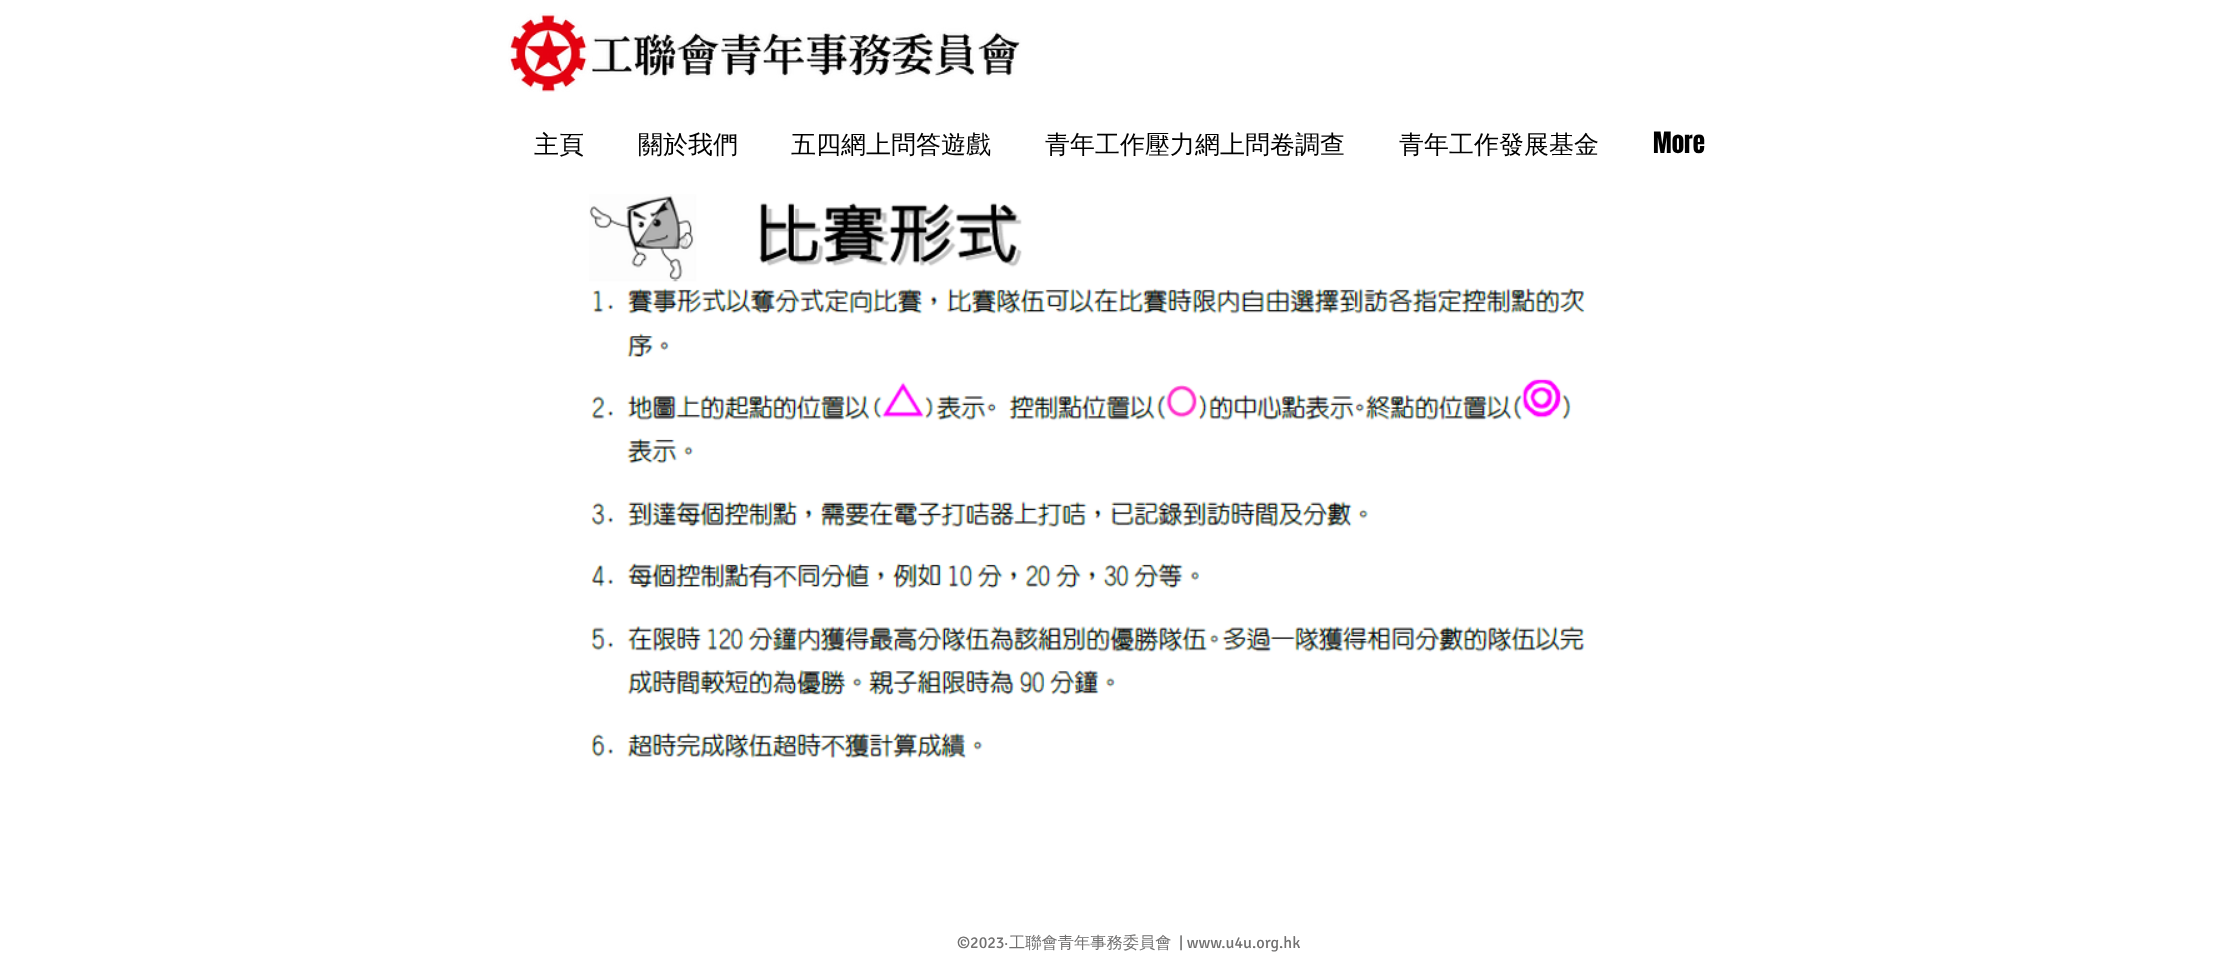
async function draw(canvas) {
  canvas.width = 2238
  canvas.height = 971
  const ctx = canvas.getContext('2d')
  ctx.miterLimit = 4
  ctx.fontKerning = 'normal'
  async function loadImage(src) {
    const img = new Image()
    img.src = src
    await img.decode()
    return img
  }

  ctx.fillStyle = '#fff'
  ctx.fillRect(0, 0, 2238, 971)
  ctx.drawImage(await loadImage('image0.png'), 508, 13, 513, 79)
  ctx.font = '500 25px WenQuanYi Zen Hei'
  ctx.fillStyle = '#000'
  ctx.fillText('主頁', 534, 153)
  ctx.fillText('關於我們', 638, 153)
  ctx.fillText('五四網上問答遊戲', 791, 153)
  ctx.fillText('青年工作壓力網上問卷調查', 1045, 153)
  ctx.fillText('青年工作發展基金', 1399, 153)
  ctx.font = '25px Anton'
  ctx.fillText('More', 1653, 153)
  ctx.drawImage(await loadImage('image1.png'), 589, 194, 996, 564)
  ctx.font = '16.25px Signika'
  ctx.fillStyle = '#717070'
  ctx.fillText('©2023', 957, 948)
  ctx.font = '16.25px Noto Sans'
  ctx.fillText('‧', 1004, 948)
  ctx.font = '500 16.25px WenQuanYi Zen Hei'
  ctx.fillText('工聯會青年事務委員會', 1009, 948)
  ctx.font = '16.25px Signika'
  ctx.fillText('| www.u4u.org.hk', 1179, 948)
}

draw(document.querySelector('canvas'))
